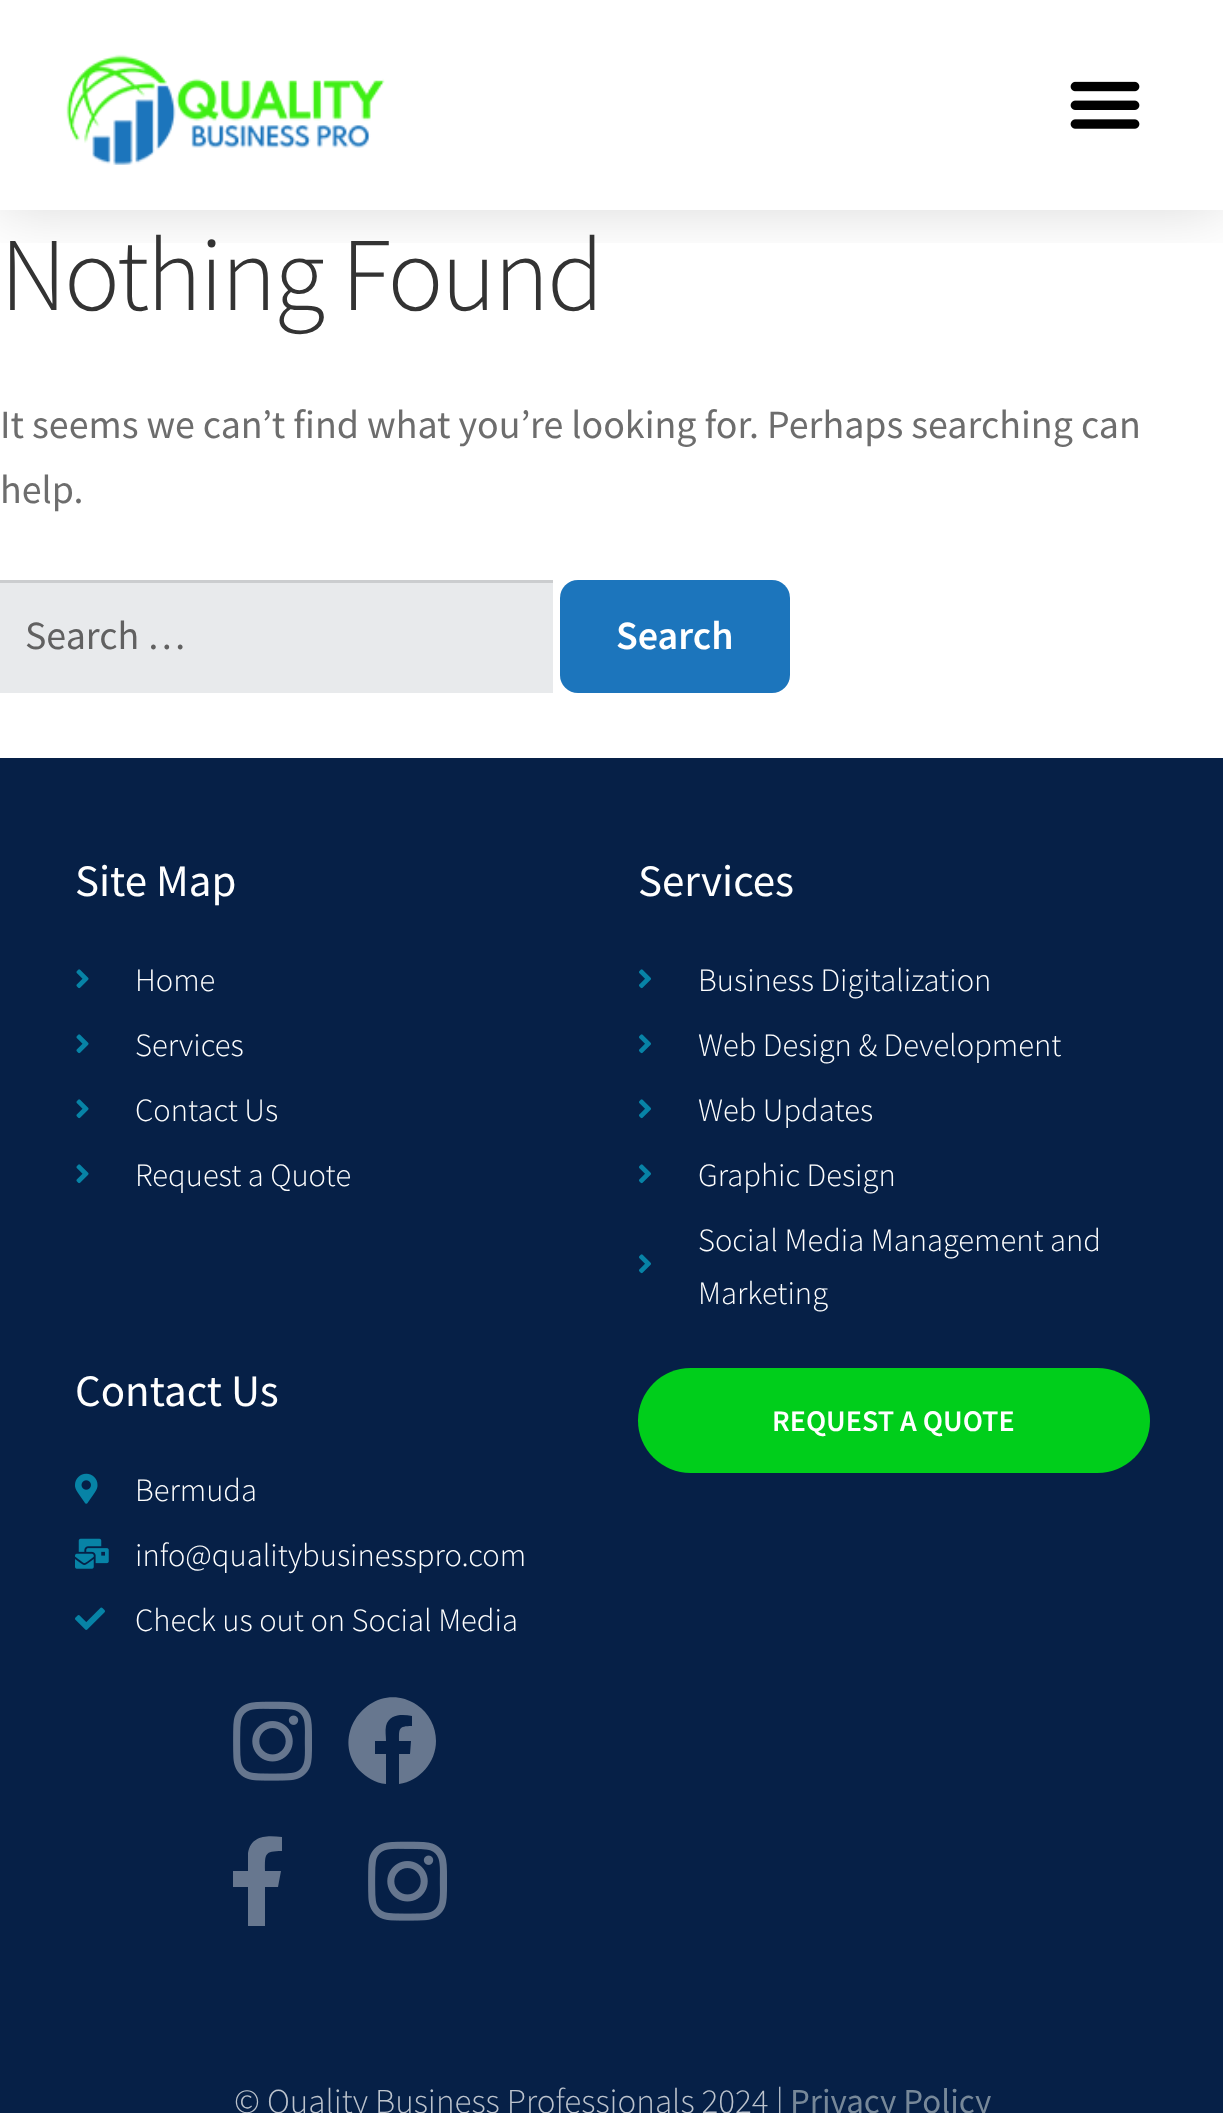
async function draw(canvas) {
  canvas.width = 1223
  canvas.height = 2113
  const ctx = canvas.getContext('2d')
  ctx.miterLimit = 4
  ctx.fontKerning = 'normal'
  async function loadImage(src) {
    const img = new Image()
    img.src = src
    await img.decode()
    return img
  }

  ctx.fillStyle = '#fff'
  ctx.fillRect(0, 0, 1223, 2113)
  ctx.save()
  ctx.beginPath()
  ctx.rect(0, 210, 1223, 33)
  ctx.clip()
  ctx.fillStyle = '#00000026'
  ctx.filter = 'blur(30px)'
  ctx.beginPath()
  ctx.rect(0, 0, 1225, 210)
  ctx.fill()
  ctx.filter = 'none'
  ctx.restore()
  ctx.drawImage(await loadImage('image0.png'), 66, 54, 319, 111)
  ctx.drawImage(await loadImage('image1.png'), 1070, 81, 70, 48)
  ctx.letterSpacing = '-2.5px'
  ctx.font = '300 104.75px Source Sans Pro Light'
  ctx.fillStyle = '#333'
  ctx.fillText('Nothing Found', 0, 310)
  ctx.letterSpacing = '0px'
  ctx.font = '40px Source Sans Pro'
  ctx.fillStyle = '#6d6d6d'
  ctx.fillText('It seems we can’t find what you’re looking for. Perhaps searching can', 0, 438)
  ctx.fillText('help.', 0, 503)
  ctx.fillStyle = '#e8eaec'
  ctx.fillRect(0, 583, 553, 110)
  ctx.fillStyle = '#cbcdcf'
  ctx.fillRect(0, 580, 553, 3)
  ctx.fillStyle = '#616161'
  ctx.fillText('Search …', 25, 649)
  ctx.fillStyle = '#1c75bc'
  ctx.beginPath()
  ctx.roundRect(560, 580, 230, 113, 18)
  ctx.fill()
  ctx.font = '600 40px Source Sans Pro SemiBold'
  ctx.fillStyle = '#fff'
  ctx.fillText('Search', 616, 649)
  ctx.fillStyle = '#062047'
  ctx.fillRect(0, 758, 1223, 1355)
  ctx.font = '45px Source Sans Pro'
  ctx.fillStyle = '#fff'
  ctx.fillText('Site Map', 75, 896)
  ctx.drawImage(await loadImage('image2.png'), 76, 969, 13, 20)
  ctx.font = '300 32.5px Source Sans Pro Light'
  ctx.fillText('Home', 135, 991)
  ctx.drawImage(await loadImage('image2.png'), 76, 1034, 13, 20)
  ctx.fillText('Services', 135, 1056)
  ctx.drawImage(await loadImage('image2.png'), 76, 1099, 13, 20)
  ctx.fillText('Contact Us', 135, 1121)
  ctx.drawImage(await loadImage('image2.png'), 76, 1164, 13, 20)
  ctx.fillText('Request a Quote', 135, 1186)
  ctx.font = '45px Source Sans Pro'
  ctx.fillText('Services', 638, 896)
  ctx.drawImage(await loadImage('image3.png'), 639, 969, 12, 20)
  ctx.font = '300 32.5px Source Sans Pro Light'
  ctx.fillText('Business Digitalization', 698, 991)
  ctx.drawImage(await loadImage('image3.png'), 639, 1034, 12, 20)
  ctx.fillText('Web Design & Development', 698, 1056)
  ctx.drawImage(await loadImage('image3.png'), 639, 1099, 12, 20)
  ctx.fillText('Web Updates', 698, 1121)
  ctx.drawImage(await loadImage('image3.png'), 639, 1164, 12, 20)
  ctx.fillText('Graphic Design', 698, 1186)
  ctx.drawImage(await loadImage('image3.png'), 639, 1254, 12, 20)
  ctx.fillText('Social Media Management and', 698, 1251)
  ctx.fillText('Marketing', 698, 1304)
  ctx.font = '45px Source Sans Pro'
  ctx.fillText('Contact Us', 75, 1406)
  ctx.drawImage(await loadImage('image4.png'), 75, 1473, 23, 31)
  ctx.font = '300 32.5px Source Sans Pro Light'
  ctx.fillText('Bermuda', 135, 1501)
  ctx.drawImage(await loadImage('image5.png'), 75, 1538, 34, 31)
  ctx.fillText('info@qualitybusinesspro.com', 135, 1566)
  ctx.drawImage(await loadImage('image6.png'), 75, 1607, 30, 23)
  ctx.fillText('Check us out on Social Media', 135, 1631)
  ctx.drawImage(await loadImage('image7.png'), 233, 1701, 79, 80)
  ctx.fillStyle = '#67778f'
  ctx.beginPath()
  ctx.moveTo(436, 1741)
  ctx.bezierCurveTo(436, 1762, 420, 1781, 399, 1784)
  ctx.lineTo(399, 1754)
  ctx.lineTo(410, 1754)
  ctx.lineTo(411, 1741)
  ctx.lineTo(399, 1741)
  ctx.bezierCurveTo(399, 1729, 398, 1726, 412, 1726)
  ctx.lineTo(412, 1716)
  ctx.bezierCurveTo(402, 1714, 389, 1714, 386, 1726)
  ctx.bezierCurveTo(385, 1731, 386, 1736, 386, 1741)
  ctx.lineTo(375, 1741)
  ctx.lineTo(375, 1754)
  ctx.lineTo(386, 1754)
  ctx.lineTo(386, 1784)
  ctx.bezierCurveTo(375, 1783, 366, 1777, 359, 1770)
  ctx.bezierCurveTo(327, 1732, 375, 1677, 417, 1705)
  ctx.bezierCurveTo(429, 1713, 436, 1727, 436, 1741)
  ctx.closePath()
  ctx.fill()
  ctx.beginPath()
  ctx.moveTo(278, 1887)
  ctx.lineTo(265, 1887)
  ctx.lineTo(265, 1926)
  ctx.lineTo(248, 1926)
  ctx.lineTo(248, 1887)
  ctx.lineTo(233, 1887)
  ctx.lineTo(233, 1871)
  ctx.lineTo(248, 1871)
  ctx.lineTo(248, 1853)
  ctx.bezierCurveTo(251, 1835, 267, 1835, 282, 1837)
  ctx.lineTo(282, 1851)
  ctx.bezierCurveTo(264, 1851, 265, 1854, 265, 1871)
  ctx.lineTo(281, 1871)
  ctx.closePath()
  ctx.fill()
  ctx.drawImage(await loadImage('image7.png'), 368, 1841, 79, 80)
  ctx.fillStyle = '#00ce1b'
  ctx.beginPath()
  ctx.roundRect(638, 1368, 512, 105, 52.5)
  ctx.fill()
  ctx.font = '600 30px Source Sans Pro SemiBold'
  ctx.fillStyle = '#fff'
  ctx.fillText('REQUEST A QUOTE', 772, 1431)
  ctx.font = '300 35px Source Sans Pro Light'
  ctx.fillStyle = '#bcc3cd'
  ctx.fillText('© Quality Business Professionals 2024 |', 234, 2113)
  ctx.font = '35px Source Sans Pro'
  ctx.fillStyle = '#789'
  ctx.fillText('Privacy Policy', 790, 2113)
}

draw(document.querySelector('canvas'))
